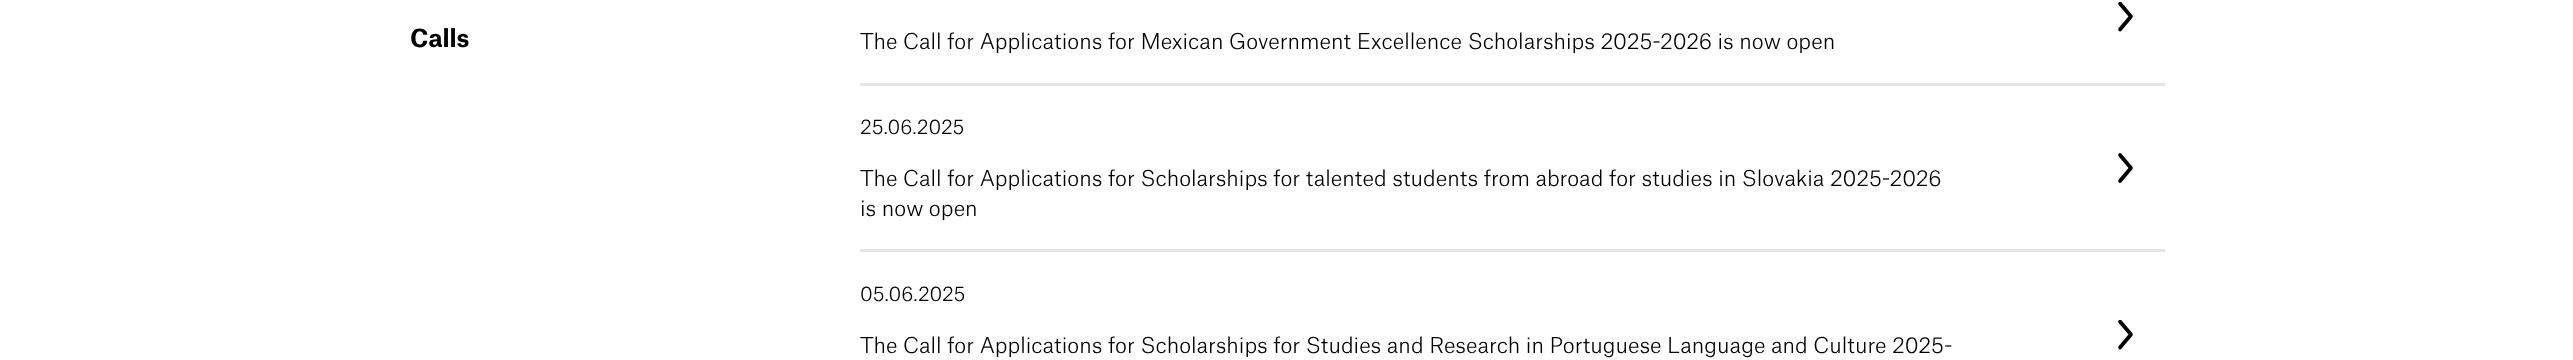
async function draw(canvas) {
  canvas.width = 2573
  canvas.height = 360
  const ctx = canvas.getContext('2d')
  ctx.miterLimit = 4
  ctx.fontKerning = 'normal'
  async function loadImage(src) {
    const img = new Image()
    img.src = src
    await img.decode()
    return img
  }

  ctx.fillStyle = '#fff'
  ctx.fillRect(0, 0, 2573, 360)
  ctx.font = 'bold 24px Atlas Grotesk'
  ctx.fillStyle = '#000'
  ctx.fillText('Calls', 410, 47)
  ctx.drawImage(await loadImage('image0.png'), 2118, 2, 15, 30)
  ctx.fillStyle = '#e5e5e5'
  ctx.fillRect(860, 83, 1305, 3)
  ctx.font = '300 21px Atlas Grotesk'
  ctx.fillStyle = '#000'
  ctx.fillText('The Call for Applications for Mexican Government Excellence Scholarships 2025-2026 is now open', 860, 49)
  ctx.drawImage(await loadImage('image1.png'), 2118, 153, 15, 30)
  ctx.fillStyle = '#e5e5e5'
  ctx.fillRect(860, 249, 1305, 3)
  ctx.font = '300 19.25px Atlas Grotesk'
  ctx.fillStyle = '#000'
  ctx.fillText('25.06.2025', 860, 134)
  ctx.font = '300 21px Atlas Grotesk'
  ctx.fillText('The Call for Applications for Scholarships for talented students from abroad for studies in Slovakia 2025-2026', 860, 186)
  ctx.fillText('is now open', 860, 216)
  ctx.drawImage(await loadImage('image0.png'), 2118, 320, 15, 30)
  ctx.font = '300 19.25px Atlas Grotesk'
  ctx.fillText('05.06.2025', 860, 301)
  ctx.font = '300 21px Atlas Grotesk'
  ctx.fillText('The Call for Applications for Scholarships for Studies and Research in Portuguese Language and Culture 2025-', 860, 353)
}

draw(document.querySelector('canvas'))
